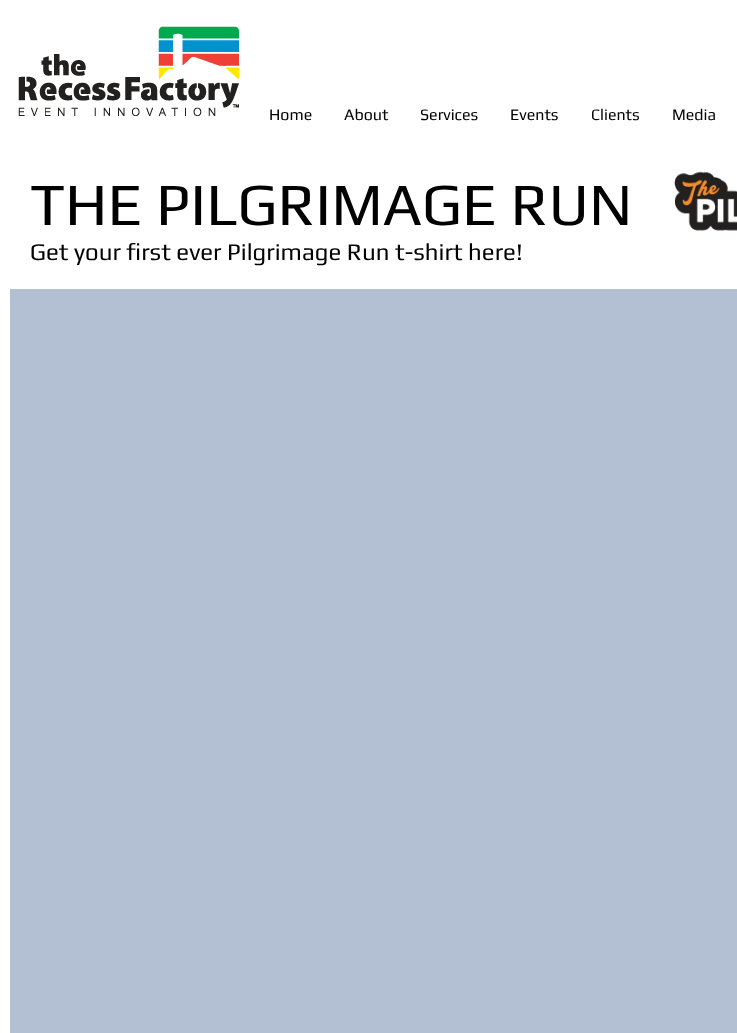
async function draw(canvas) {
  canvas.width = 737
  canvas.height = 1033
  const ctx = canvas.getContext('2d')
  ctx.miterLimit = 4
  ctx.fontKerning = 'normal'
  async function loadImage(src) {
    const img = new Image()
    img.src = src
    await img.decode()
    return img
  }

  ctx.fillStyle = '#fff'
  ctx.fillRect(0, 0, 737, 1033)
  ctx.drawImage(await loadImage('image0.png'), 18, 26, 221, 90)
  ctx.font = '16px Play'
  ctx.fillStyle = '#000'
  ctx.fillText('Home', 269, 120)
  ctx.fillText('About', 344, 120)
  ctx.fillText('Services', 420, 120)
  ctx.fillText('Events', 510, 120)
  ctx.fillText('Clients', 591, 120)
  ctx.fillText('Media', 672, 120)
  ctx.font = '60px Play'
  ctx.fillText('THE PILGRIMAGE RUN', 30, 225)
  ctx.font = '24px Play'
  ctx.fillText('Get your first ever Pilgrimage Run t-shirt here!', 30, 260)
  ctx.drawImage(await loadImage('image1.png'), 674, 171, 63, 60)
  ctx.fillStyle = '#b3c0d3'
  ctx.fillRect(10, 289, 727, 744)
}

draw(document.querySelector('canvas'))
